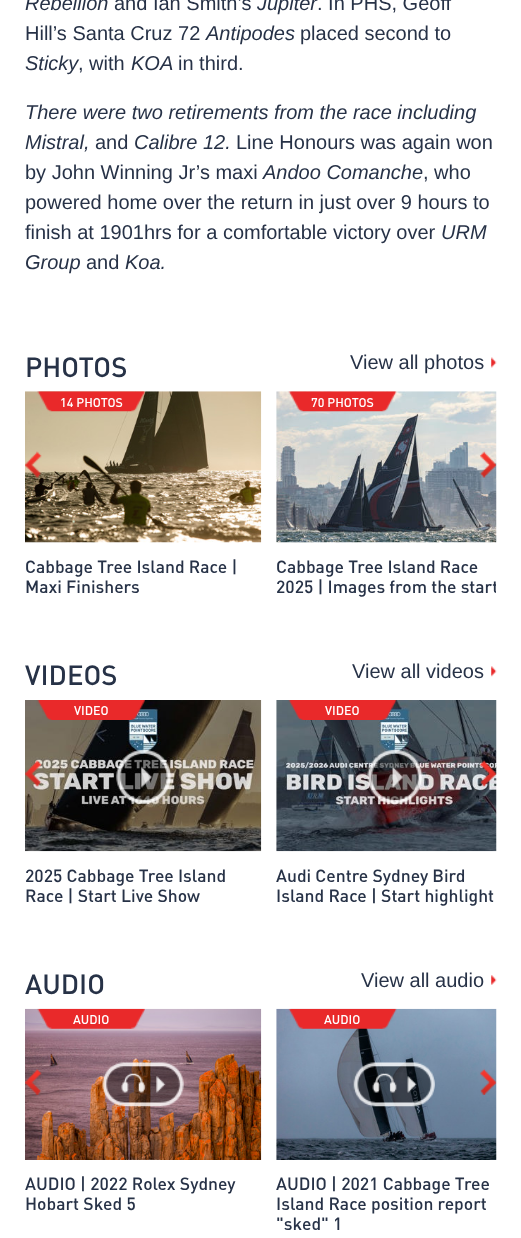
async function draw(canvas) {
  canvas.width = 521
  canvas.height = 1238
  const ctx = canvas.getContext('2d')
  ctx.miterLimit = 4
  ctx.fontKerning = 'normal'
  async function loadImage(src) {
    const img = new Image()
    img.src = src
    await img.decode()
    return img
  }

  ctx.fillStyle = '#fff'
  ctx.fillRect(0, 0, 521, 1238)
  ctx.font = 'italic 20px Liberation Sans'
  ctx.fillStyle = '#273247'
  ctx.fillText('Rebellion', 25, 10)
  ctx.font = '20px Liberation Sans'
  ctx.fillText('and Ian Smith’s', 114, 10)
  ctx.font = 'italic 20px Liberation Sans'
  ctx.fillText('Jupiter', 257, 10)
  ctx.font = '20px Liberation Sans'
  ctx.fillText('. In PHS, Geoff', 317, 10)
  ctx.fillText('Hill’s Santa Cruz 72', 25, 40)
  ctx.font = 'italic 20px Liberation Sans'
  ctx.fillText('Antipodes', 206, 40)
  ctx.font = '20px Liberation Sans'
  ctx.fillText('placed second to', 300, 40)
  ctx.font = 'italic 20px Liberation Sans'
  ctx.fillText('Sticky', 25, 70)
  ctx.font = '20px Liberation Sans'
  ctx.fillText(', with', 78, 70)
  ctx.font = 'italic 20px Liberation Sans'
  ctx.fillText('KOA', 131, 70)
  ctx.font = '20px Liberation Sans'
  ctx.fillText('in third.', 178, 70)
  ctx.font = 'italic 20px Liberation Sans'
  ctx.fillText('There were two retirements from the race including', 25, 119)
  ctx.fillText('Mistral,', 25, 149)
  ctx.font = '20px Liberation Sans'
  ctx.fillText('and', 95, 149)
  ctx.font = 'italic 20px Liberation Sans'
  ctx.fillText('Calibre 12.', 134, 149)
  ctx.font = '20px Liberation Sans'
  ctx.fillText('Line Honours was again won', 236, 149)
  ctx.fillText('by John Winning Jr’s maxi', 25, 179)
  ctx.font = 'italic 20px Liberation Sans'
  ctx.fillText('Andoo Comanche', 263, 179)
  ctx.font = '20px Liberation Sans'
  ctx.fillText(', who', 423, 179)
  ctx.fillText('powered home over the return in just over 9 hours to', 25, 209)
  ctx.fillText('finish at 1901hrs for a comfortable victory over', 25, 239)
  ctx.font = 'italic 20px Liberation Sans'
  ctx.fillText('URM', 441, 239)
  ctx.fillText('Group', 25, 269)
  ctx.font = '20px Liberation Sans'
  ctx.fillText('and', 86, 269)
  ctx.font = 'italic 20px Liberation Sans'
  ctx.fillText('Koa.', 125, 269)
  ctx.font = '500 27.5px DIN'
  ctx.fillText('PHOTOS', 25, 377)
  ctx.drawImage(await loadImage('image0.png'), 491, 357, 6, 11)
  ctx.font = '20px Liberation Sans'
  ctx.fillText('View all photos', 350, 369)
  ctx.drawImage(await loadImage('image1.png'), 25, 391, 237, 152)
  ctx.drawImage(await loadImage('image2.png'), 37, 391, 108, 21)
  ctx.font = '500 12.5px DIN'
  ctx.fillStyle = '#fff'
  ctx.fillText('14 PHOTOS', 60, 407)
  ctx.font = '500 17.5px DIN'
  ctx.fillStyle = '#273247'
  ctx.fillText('Cabbage Tree Island Race |', 25, 573)
  ctx.fillText('Maxi Finishers', 25, 593)
  ctx.drawImage(await loadImage('image3.png'), 276, 391, 221, 152)
  ctx.drawImage(await loadImage('image4.png'), 288, 391, 109, 21)
  ctx.font = '500 12.5px DIN'
  ctx.fillStyle = '#fff'
  ctx.fillText('70 PHOTOS', 311, 407)
  ctx.font = '500 17.5px DIN'
  ctx.fillStyle = '#273247'
  ctx.fillText('Cabbage Tree Island Race', 276, 573)
  ctx.save()
  ctx.beginPath()
  ctx.rect(25, 391, 471, 250)
  ctx.clip()
  ctx.fillText('2025 | Images from the start', 276, 593)
  ctx.restore()
  ctx.drawImage(await loadImage('image5.png'), 25, 451, 17, 27)
  ctx.drawImage(await loadImage('image6.png'), 480, 451, 17, 27)
  ctx.font = '500 27.5px DIN'
  ctx.fillText('VIDEOS', 25, 685)
  ctx.drawImage(await loadImage('image7.png'), 491, 666, 6, 11)
  ctx.font = '20px Liberation Sans'
  ctx.fillText('View all videos', 352, 678)
  ctx.drawImage(await loadImage('image8.png'), 25, 700, 237, 152)
  ctx.drawImage(await loadImage('image9.png'), 37, 700, 108, 20)
  ctx.font = '500 12.5px DIN'
  ctx.fillStyle = '#fff'
  ctx.fillText('VIDEO', 74, 715)
  ctx.drawImage(await loadImage('image10.png'), 116, 749, 56, 55)
  ctx.font = '500 17.5px DIN'
  ctx.fillStyle = '#273247'
  ctx.fillText('2025 Cabbage Tree Island', 25, 882)
  ctx.fillText('Race | Start Live Show', 25, 902)
  ctx.drawImage(await loadImage('image11.png'), 276, 700, 221, 152)
  ctx.drawImage(await loadImage('image12.png'), 288, 700, 109, 20)
  ctx.font = '500 12.5px DIN'
  ctx.fillStyle = '#fff'
  ctx.fillText('VIDEO', 325, 715)
  ctx.drawImage(await loadImage('image13.png'), 367, 748, 56, 56)
  ctx.font = '500 17.5px DIN'
  ctx.fillStyle = '#273247'
  ctx.fillText('Audi Centre Sydney Bird', 276, 882)
  ctx.fillText('Island Race | Start highlight', 276, 902)
  ctx.drawImage(await loadImage('image14.png'), 25, 760, 17, 27)
  ctx.drawImage(await loadImage('image15.png'), 480, 760, 17, 27)
  ctx.font = '500 27.5px DIN'
  ctx.fillText('AUDIO', 25, 994)
  ctx.drawImage(await loadImage('image16.png'), 491, 975, 6, 10)
  ctx.font = '20px Liberation Sans'
  ctx.fillText('View all audio', 361, 987)
  ctx.drawImage(await loadImage('image17.png'), 25, 1008, 237, 152)
  ctx.drawImage(await loadImage('image18.png'), 37, 1008, 108, 21)
  ctx.font = '500 12.5px DIN'
  ctx.fillStyle = '#fff'
  ctx.fillText('AUDIO', 73, 1024)
  ctx.drawImage(await loadImage('image19.png'), 102, 1062, 82, 45)
  ctx.font = '500 17.5px DIN'
  ctx.fillStyle = '#273247'
  ctx.fillText('AUDIO | 2022 Rolex Sydney', 25, 1190)
  ctx.fillText('Hobart Sked 5', 25, 1210)
  ctx.drawImage(await loadImage('image20.png'), 276, 1008, 221, 152)
  ctx.drawImage(await loadImage('image21.png'), 288, 1008, 109, 21)
  ctx.font = '500 12.5px DIN'
  ctx.fillStyle = '#fff'
  ctx.fillText('AUDIO', 324, 1024)
  ctx.drawImage(await loadImage('image22.png'), 353, 1062, 82, 45)
  ctx.font = '500 17.5px DIN'
  ctx.fillStyle = '#273247'
  ctx.fillText('AUDIO | 2021 Cabbage Tree', 276, 1190)
  ctx.fillText('Island Race position report', 276, 1210)
  ctx.fillText('"sked" 1', 276, 1230)
  ctx.drawImage(await loadImage('image23.png'), 25, 1069, 17, 26)
  ctx.drawImage(await loadImage('image24.png'), 480, 1068, 17, 27)
}

draw(document.querySelector('canvas'))
